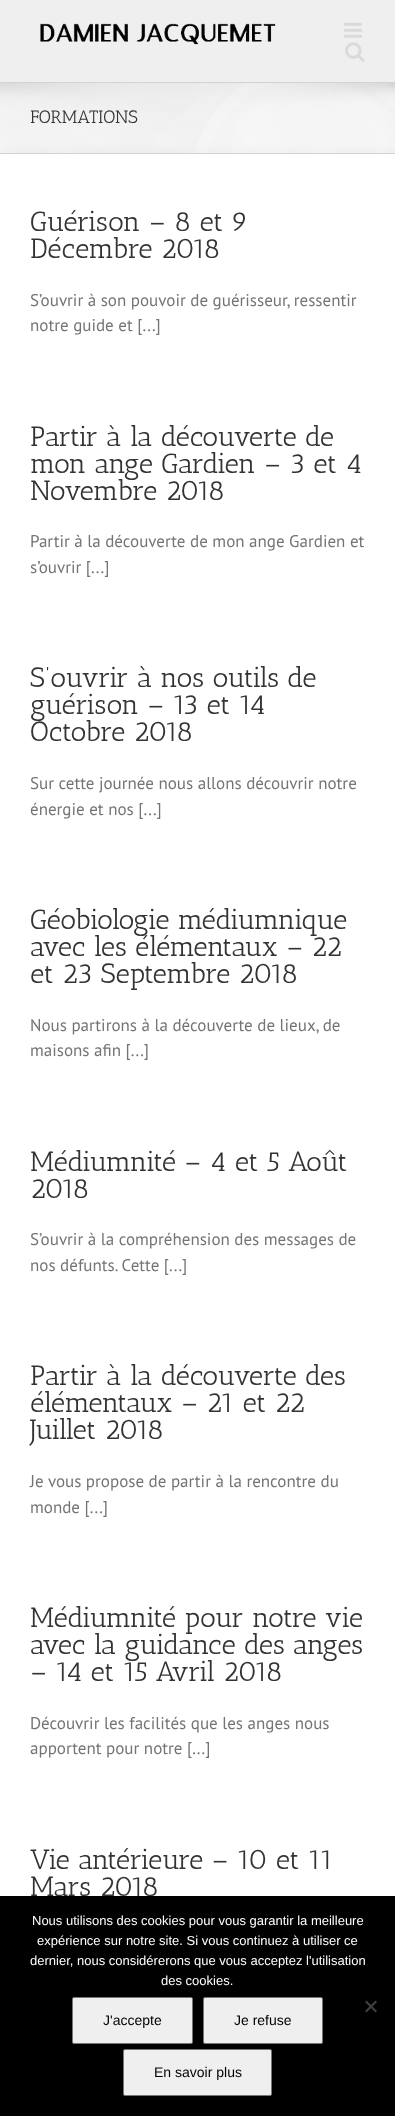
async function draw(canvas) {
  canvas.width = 395
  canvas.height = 2116
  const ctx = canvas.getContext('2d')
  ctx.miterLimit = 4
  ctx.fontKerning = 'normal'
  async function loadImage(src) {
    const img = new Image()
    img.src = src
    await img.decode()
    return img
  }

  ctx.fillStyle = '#fff'
  ctx.fillRect(0, 0, 395, 2116)
  ctx.fillStyle = '#efefef'
  ctx.fillRect(0, 0, 395, 82)
  ctx.drawImage(await loadImage('image0.png'), 40, 23, 236, 22)
  ctx.drawImage(await loadImage('image1.png'), 344, 22, 18, 16)
  ctx.drawImage(await loadImage('image2.png'), 345, 42, 20, 20)
  ctx.fillStyle = '#f6f6f6'
  ctx.fillRect(0, 83, 395, 70)
  ctx.drawImage(await loadImage('image3.png'), 0, 83, 395, 70)
  ctx.fillStyle = '#d2d3d4'
  ctx.fillRect(0, 82, 395, 1)
  ctx.fillRect(0, 153, 395, 1)
  ctx.font = '18px Antic Slab'
  ctx.fillStyle = '#333'
  ctx.fillText('FORMATIONS', 30, 123)
  ctx.font = '28px Antic Slab'
  ctx.fillText('Guérison – 8 et 9', 30, 231)
  ctx.fillText('Décembre 2018', 30, 258)
  ctx.font = '17px PT Sans'
  ctx.fillStyle = '#747474'
  ctx.fillText('S’ouvrir à son pouvoir de guérisseur, ressentir', 30, 306)
  ctx.fillText('notre guide et [...]', 30, 331)
  ctx.font = '28px Antic Slab'
  ctx.fillStyle = '#333'
  ctx.fillText('Partir à la découverte de', 30, 446)
  ctx.fillText('mon ange Gardien – 3 et 4', 30, 473)
  ctx.fillText('Novembre 2018', 30, 500)
  ctx.font = '17px PT Sans'
  ctx.fillStyle = '#747474'
  ctx.fillText('Partir à la découverte de mon ange Gardien et', 30, 547)
  ctx.fillText('s’ouvrir [...]', 30, 573)
  ctx.font = '28px Antic Slab'
  ctx.fillStyle = '#333'
  ctx.fillText('S’ouvrir à nos outils de', 30, 687)
  ctx.fillText('guérison – 13 et 14', 30, 714)
  ctx.fillText('Octobre 2018', 30, 741)
  ctx.font = '17px PT Sans'
  ctx.fillStyle = '#747474'
  ctx.fillText('Sur cette journée nous allons découvrir notre', 30, 789)
  ctx.fillText('énergie et nos [...]', 30, 815)
  ctx.font = '28px Antic Slab'
  ctx.fillStyle = '#333'
  ctx.fillText('Géobiologie médiumnique', 30, 929)
  ctx.fillText('avec les élémentaux – 22', 30, 956)
  ctx.fillText('et 23 Septembre 2018', 30, 983)
  ctx.font = '17px PT Sans'
  ctx.fillStyle = '#747474'
  ctx.fillText('Nous partirons à la découverte de lieux, de', 30, 1031)
  ctx.fillText('maisons afin [...]', 30, 1056)
  ctx.font = '28px Antic Slab'
  ctx.fillStyle = '#333'
  ctx.fillText('Médiumnité – 4 et 5 Août', 30, 1171)
  ctx.fillText('2018', 30, 1198)
  ctx.font = '17px PT Sans'
  ctx.fillStyle = '#747474'
  ctx.fillText('S’ouvrir à la compréhension des messages de', 30, 1245)
  ctx.fillText('nos défunts. Cette [...]', 30, 1271)
  ctx.font = '28px Antic Slab'
  ctx.fillStyle = '#333'
  ctx.fillText('Partir à la découverte des', 30, 1385)
  ctx.fillText('élémentaux – 21 et 22', 30, 1412)
  ctx.fillText('Juillet 2018', 30, 1439)
  ctx.font = '17px PT Sans'
  ctx.fillStyle = '#747474'
  ctx.fillText('Je vous propose de partir à la rencontre du', 30, 1487)
  ctx.fillText('monde [...]', 30, 1513)
  ctx.font = '28px Antic Slab'
  ctx.fillStyle = '#333'
  ctx.fillText('Médiumnité pour notre vie', 30, 1627)
  ctx.fillText('avec la guidance des anges', 30, 1654)
  ctx.fillText('– 14 et 15 Avril 2018', 30, 1681)
  ctx.font = '17px PT Sans'
  ctx.fillStyle = '#747474'
  ctx.fillText('Découvrir les facilités que les anges nous', 30, 1729)
  ctx.fillText('apportent pour notre [...]', 30, 1754)
  ctx.font = '28px Antic Slab'
  ctx.fillStyle = '#333'
  ctx.fillText('Vie antérieure – 10 et 11', 30, 1869)
  ctx.fillText('Mars 2018', 30, 1896)
  ctx.fillStyle = '#000'
  ctx.fillRect(0, 1896, 395, 220)
  ctx.font = '13px Liberation Sans'
  ctx.fillStyle = '#fff'
  ctx.fillText('Nous utilisons des cookies pour vous garantir la meilleure', 32, 1925)
  ctx.fillText('expérience sur notre site. Si vous continuez à utiliser ce', 37, 1945)
  ctx.fillText('dernier, nous considérerons que vous acceptez l\'utilisation', 30, 1965)
  ctx.fillText('des cookies.', 161, 1985)
  ctx.fillStyle = '#404040'
  ctx.beginPath()
  ctx.moveTo(375.5, 2000.5)
  ctx.lineTo(377, 2002)
  ctx.lineTo(366.5, 2012.5)
  ctx.lineTo(365, 2011)
  ctx.closePath()
  ctx.fill()
  ctx.beginPath()
  ctx.moveTo(365, 2002)
  ctx.lineTo(366.5, 2000.5)
  ctx.lineTo(377, 2011)
  ctx.lineTo(375.5, 2012.5)
  ctx.closePath()
  ctx.fill()
  ctx.fillStyle = '#efefef'
  ctx.beginPath()
  ctx.roundRect(72.5, 1997.5, 120, 46, 1.5)
  ctx.fill()
  ctx.strokeStyle = '#767676'
  ctx.stroke()
  ctx.font = '14px Liberation Sans'
  ctx.fillStyle = '#000'
  ctx.fillText('J\'accepte', 103, 2025)
  ctx.fillStyle = '#efefef'
  ctx.beginPath()
  ctx.roundRect(203.5, 1997.5, 119, 46, 1.5)
  ctx.fill()
  ctx.stroke()
  ctx.fillStyle = '#000'
  ctx.fillText('Je refuse', 234, 2025)
  ctx.fillStyle = '#efefef'
  ctx.beginPath()
  ctx.roundRect(123.5, 2049.5, 148, 46, 1.5)
  ctx.fill()
  ctx.stroke()
  ctx.fillStyle = '#000'
  ctx.fillText('En savoir plus', 154, 2077)
}

draw(document.querySelector('canvas'))
